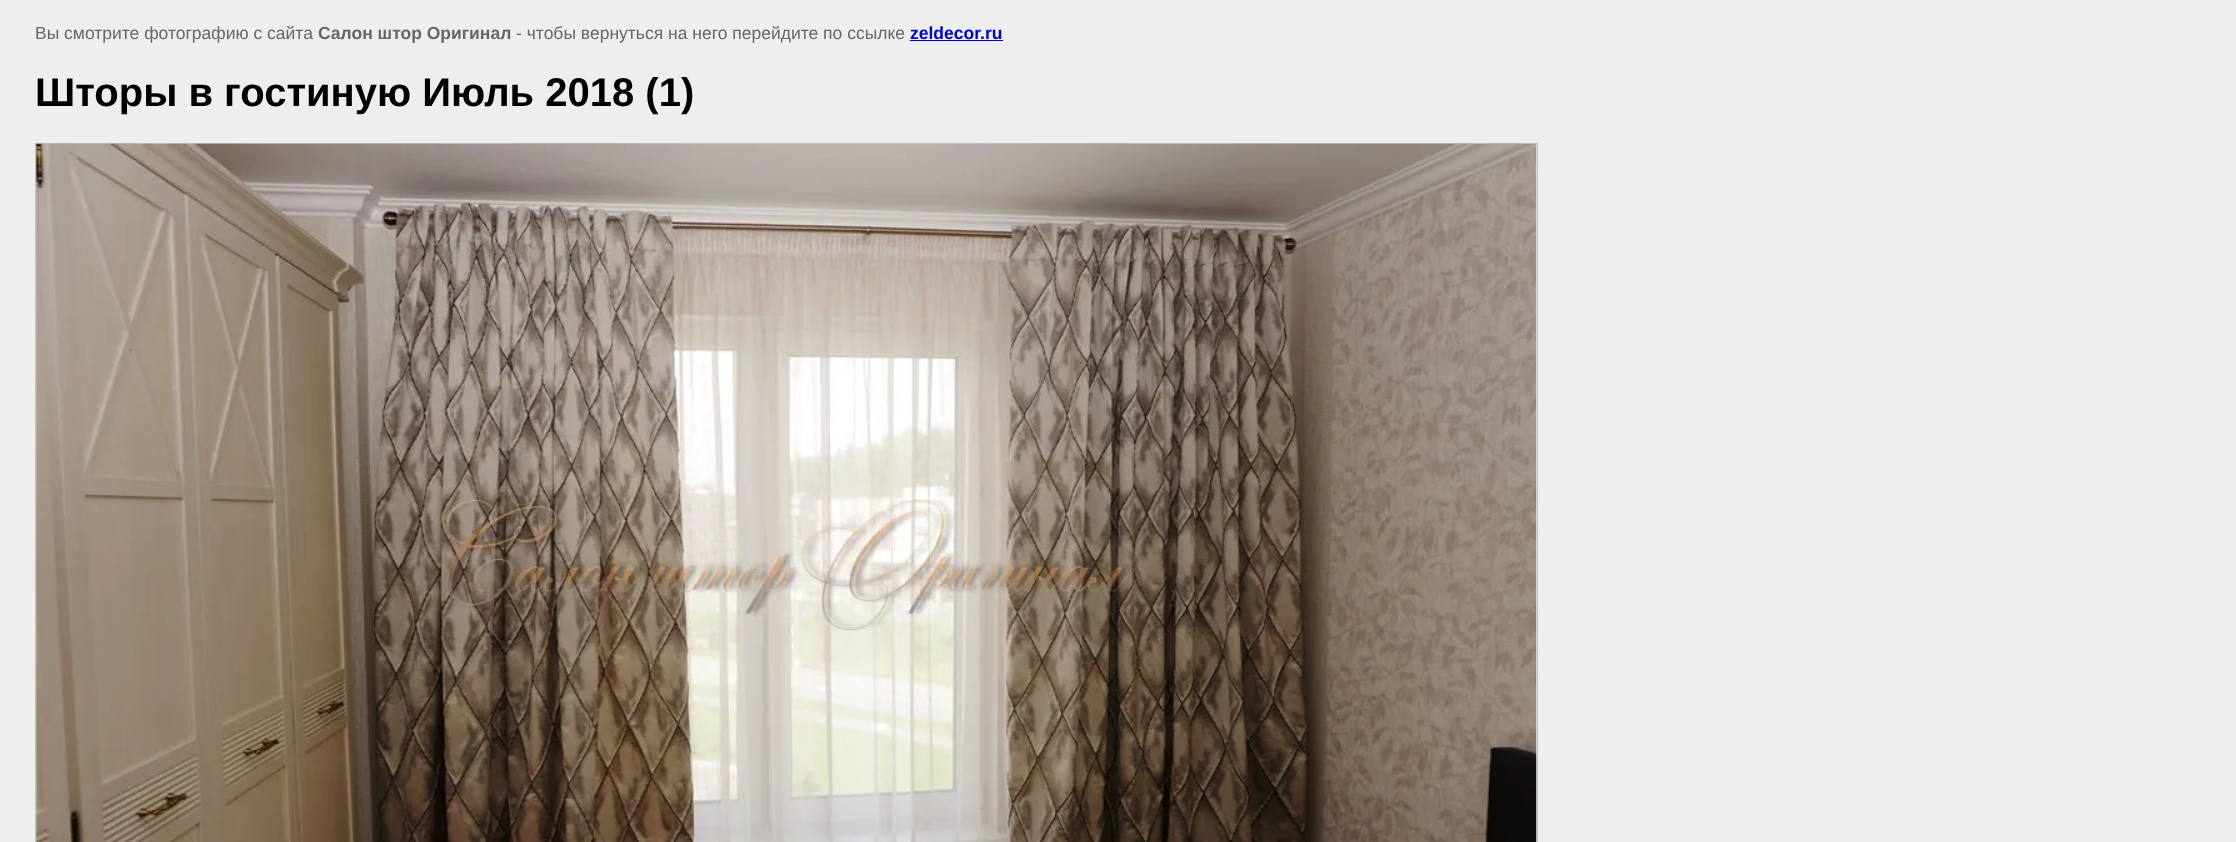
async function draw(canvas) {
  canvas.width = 2236
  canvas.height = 842
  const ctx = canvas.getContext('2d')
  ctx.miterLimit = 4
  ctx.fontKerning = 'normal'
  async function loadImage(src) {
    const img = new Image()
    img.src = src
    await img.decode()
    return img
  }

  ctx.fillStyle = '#eee'
  ctx.fillRect(0, 0, 2236, 842)
  ctx.font = '17.5px Liberation Sans'
  ctx.fillStyle = '#666'
  ctx.fillText('Вы смотрите фотографию с сайта', 35, 39)
  ctx.font = 'bold 17.5px Liberation Sans'
  ctx.fillText('Салон штор Оригинал', 318, 39)
  ctx.font = '17.5px Liberation Sans'
  ctx.fillText('- чтобы вернуться на него перейдите по ссылке', 516, 39)
  ctx.font = 'bold 17.5px Liberation Sans'
  ctx.fillStyle = '#00c'
  ctx.fillText('zeldecor.ru', 910, 39)
  ctx.fillRect(910, 40, 93, 1)
  ctx.font = 'bold 40px Liberation Sans'
  ctx.fillStyle = '#000'
  ctx.fillText('Шторы в гостиную Июль 2018 (1)', 35, 106)
  ctx.strokeStyle = '#c0c0c0'
  ctx.strokeRect(35.5, 143.5, 1502, 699)
  ctx.drawImage(await loadImage('image0.png'), 36, 143, 1501, 699)
}

draw(document.querySelector('canvas'))
